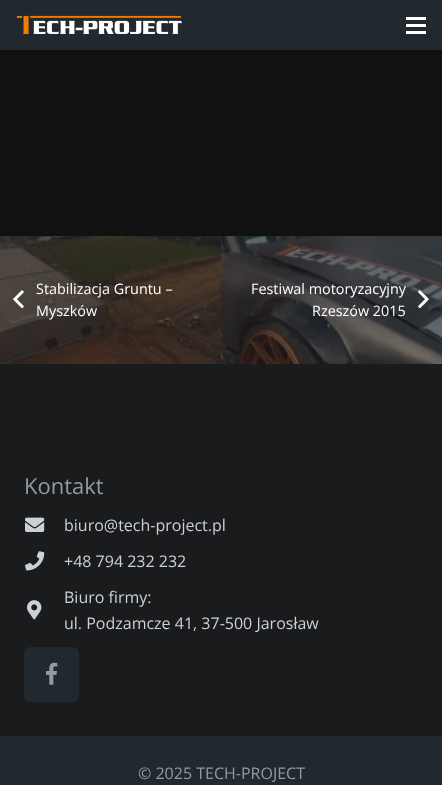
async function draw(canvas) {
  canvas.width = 442
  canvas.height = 785
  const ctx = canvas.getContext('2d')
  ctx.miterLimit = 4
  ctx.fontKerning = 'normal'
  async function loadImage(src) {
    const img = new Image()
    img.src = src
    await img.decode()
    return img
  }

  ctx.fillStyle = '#21282e'
  ctx.fillRect(0, 0, 442, 785)
  ctx.drawImage(await loadImage('image0.png'), 16, 15, 166, 19)
  ctx.fillStyle = '#fff'
  ctx.fillRect(406, 24, 20, 3)
  ctx.fillRect(406, 17, 20, 3)
  ctx.fillRect(406, 31, 20, 3)
  ctx.fillStyle = '#111'
  ctx.fillRect(0, 50, 442, 186)
  ctx.drawImage(await loadImage('image1.png'), 0, 236, 221, 128)
  ctx.drawImage(await loadImage('image2.png'), 13, 290, 11, 19)
  ctx.font = '14.4px Open Sans'
  ctx.fillStyle = '#fff'
  ctx.fillText('Stabilizacja Gruntu –', 36, 294)
  ctx.fillText('Myszków', 36, 316)
  ctx.drawImage(await loadImage('image3.png'), 221, 236, 221, 128)
  ctx.fillText('Festiwal motoryzacyjny', 251, 294)
  ctx.fillText('Rzeszów 2015', 312, 316)
  ctx.drawImage(await loadImage('image4.png'), 418, 290, 11, 19)
  ctx.fillStyle = '#1a1b1c'
  ctx.fillRect(0, 364, 442, 372)
  ctx.font = '22px Open Sans'
  ctx.fillStyle = '#939aa2'
  ctx.fillText('Kontakt', 24, 494)
  ctx.drawImage(await loadImage('image5.png'), 25, 517, 20, 15)
  ctx.font = '16px Open Sans'
  ctx.fillStyle = '#ccd0d4'
  ctx.fillText('biuro@tech-project.pl', 64, 531)
  ctx.drawImage(await loadImage('image6.png'), 25, 551, 20, 20)
  ctx.fillText('+48 794 232 232', 64, 567)
  ctx.drawImage(await loadImage('image7.png'), 27, 600, 15, 20)
  ctx.fillText('Biuro firmy:', 64, 603)
  ctx.fillText('ul. Podzamcze 41, 37-500 Jarosław', 64, 629)
  ctx.fillStyle = '#21282e'
  ctx.beginPath()
  ctx.roundRect(24, 647, 55, 55, 6)
  ctx.fill()
  ctx.drawImage(await loadImage('image8.png'), 46, 662, 12, 23)
  ctx.fillStyle = '#939aa2'
  ctx.fillText('© 2025 TECH-PROJECT', 138, 779)
}

draw(document.querySelector('canvas'))
